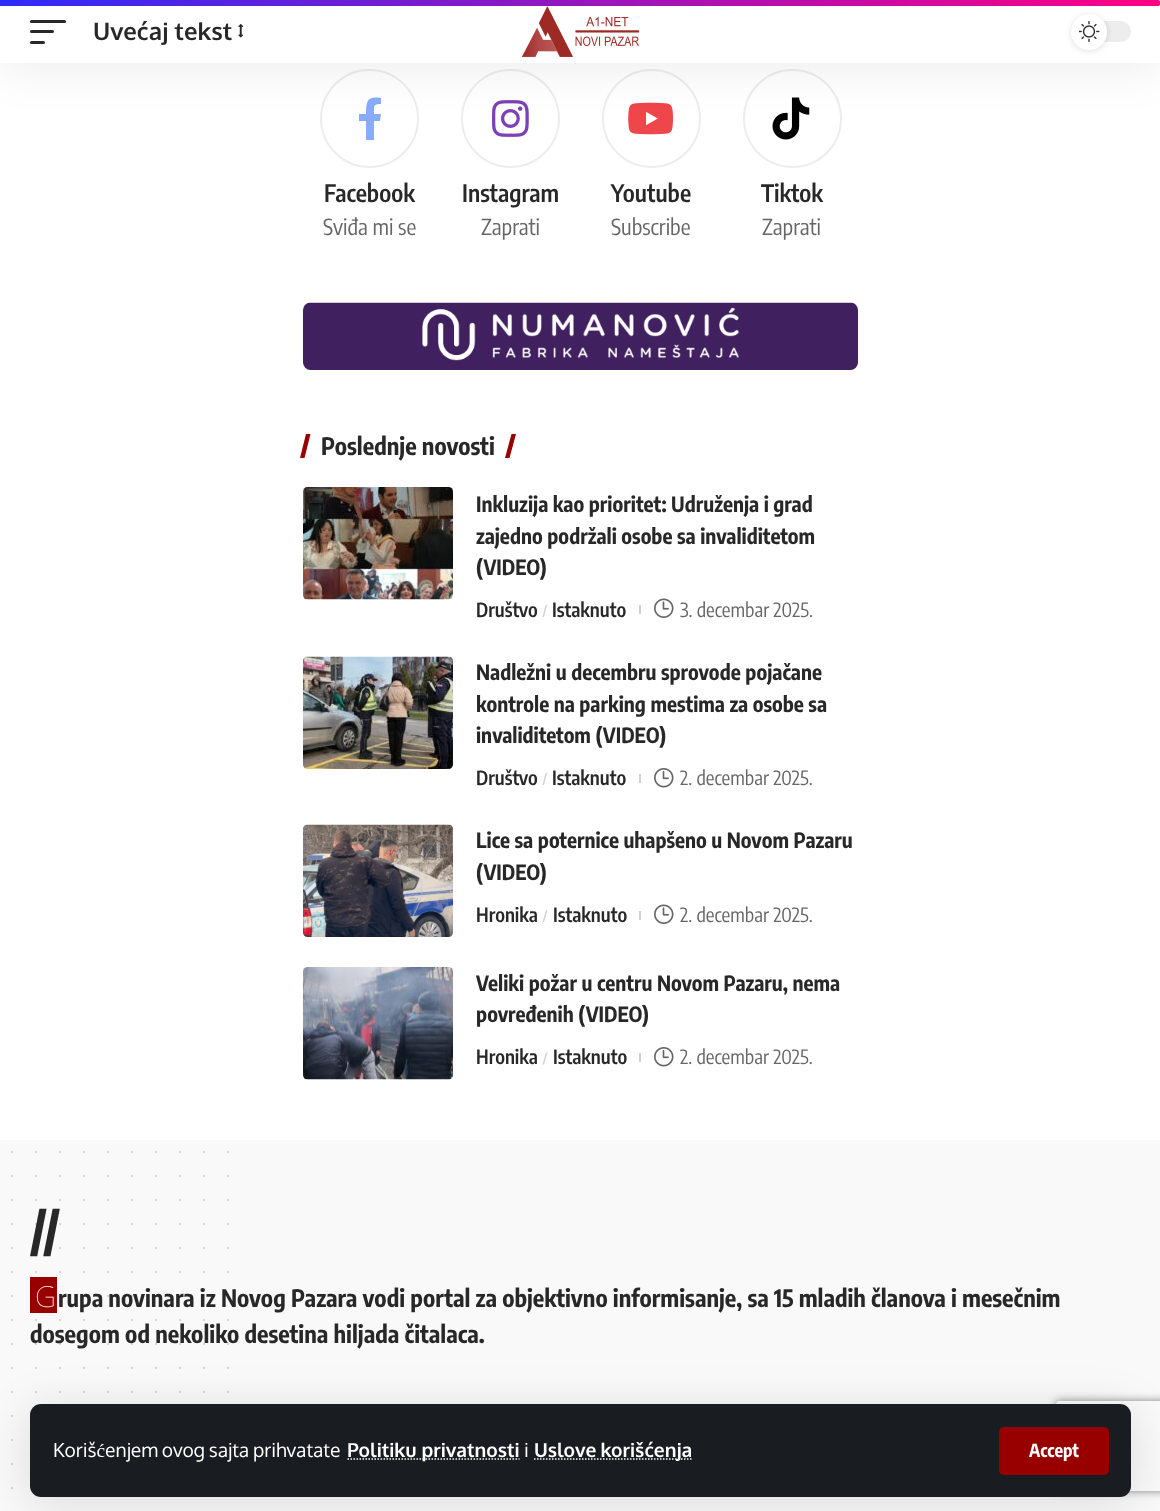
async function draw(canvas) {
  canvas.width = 1160
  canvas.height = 1511
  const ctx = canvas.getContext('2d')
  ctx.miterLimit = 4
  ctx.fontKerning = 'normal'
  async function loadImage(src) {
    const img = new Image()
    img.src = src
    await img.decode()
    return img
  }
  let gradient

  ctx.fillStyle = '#fff'
  ctx.fillRect(0, 0, 1160, 1511)
  ctx.beginPath()
  ctx.arc(369.5, 118.5, 48.5, 0, 2 * Math.PI)
  ctx.strokeStyle = '#ededed'
  ctx.lineWidth = 2
  ctx.stroke()
  ctx.fillStyle = '#89abfc'
  ctx.beginPath()
  ctx.moveTo(380, 121)
  ctx.lineTo(381, 114)
  ctx.lineTo(374, 114)
  ctx.bezierCurveTo(374, 106, 373, 104, 381, 104)
  ctx.lineTo(381, 98)
  ctx.bezierCurveTo(368, 96, 366, 100, 366, 114)
  ctx.lineTo(359, 114)
  ctx.lineTo(359, 121)
  ctx.lineTo(366, 121)
  ctx.lineTo(366, 140)
  ctx.lineTo(374, 140)
  ctx.lineTo(374, 121)
  ctx.closePath()
  ctx.fill()
  ctx.beginPath()
  ctx.arc(510.5, 118.5, 48.5, 0, 2 * Math.PI)
  ctx.stroke()
  ctx.drawImage(await loadImage('image3.png'), 492, 100, 37, 37)
  ctx.beginPath()
  ctx.arc(651.5, 118.5, 48.5, 0, 2 * Math.PI)
  ctx.stroke()
  ctx.drawImage(await loadImage('image4.png'), 628, 102, 45, 33)
  ctx.beginPath()
  ctx.arc(792.5, 118.5, 48.5, 0, 2 * Math.PI)
  ctx.stroke()
  ctx.drawImage(await loadImage('image5.png'), 772, 97, 38, 43)
  ctx.fillStyle = '#00000012'
  ctx.filter = 'blur(22.5px)'
  ctx.beginPath()
  ctx.rect(0, 6, 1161, 63)
  ctx.fill()
  ctx.filter = 'none'
  ctx.fillStyle = '#fff'
  ctx.fillRect(0, 0, 1160, 63)
  ctx.fillStyle = '#ededed'
  ctx.beginPath()
  ctx.roundRect(1071, 21, 60, 21, 10.5)
  ctx.fill()
  ctx.fillStyle = '#0000001f'
  ctx.filter = 'blur(3px)'
  ctx.beginPath()
  ctx.roundRect(1071, 15, 36, 36, 18)
  ctx.fill()
  ctx.filter = 'none'
  gradient = ctx.createLinearGradient(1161, 3, 0, 3)
  gradient.addColorStop(0, '#ff0084')
  gradient.addColorStop(1, '#2c2cf8')
  ctx.fillStyle = gradient
  ctx.beginPath()
  ctx.moveTo(0, 0)
  ctx.lineTo(1158, 0)
  ctx.bezierCurveTo(1159.5, 0, 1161, 1.5, 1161, 3)
  ctx.bezierCurveTo(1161, 4.5, 1159.5, 6, 1158, 6)
  ctx.lineTo(0, 6)
  ctx.closePath()
  ctx.fill()
  ctx.fillStyle = '#282828'
  ctx.beginPath()
  ctx.roundRect(30, 20, 36, 3, 1.5)
  ctx.fill()
  ctx.beginPath()
  ctx.roundRect(30, 30, 24, 3, 1.5)
  ctx.fill()
  ctx.beginPath()
  ctx.roundRect(30, 41, 15, 3, 1.5)
  ctx.fill()
  ctx.font = 'bold 24px Oxygen'
  ctx.fillText('Uvećaj tekst', 93, 40)
  ctx.drawImage(await loadImage('image0.png'), 238, 24, 6, 14)
  ctx.drawImage(await loadImage('image1.png'), 521, 6, 119, 51)
  ctx.fillStyle = '#fff'
  ctx.beginPath()
  ctx.arc(1089, 32, 18, 0, 2 * Math.PI)
  ctx.fill()
  ctx.drawImage(await loadImage('image2.png'), 1079, 21, 21, 21)
  ctx.fillStyle = '#f9f9f9'
  ctx.fillRect(0, 1140, 1160, 371)
  ctx.beginPath()
  ctx.moveTo(12, 1152)
  ctx.lineTo(12, 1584.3)
  ctx.strokeStyle = '#cfcfcf'
  ctx.lineWidth = 2.2
  ctx.lineCap = 'round'
  ctx.setLineDash([0, 24])
  ctx.stroke()
  ctx.beginPath()
  ctx.moveTo(36, 1152)
  ctx.lineTo(36, 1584.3)
  ctx.stroke()
  ctx.beginPath()
  ctx.moveTo(60, 1152)
  ctx.lineTo(60, 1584.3)
  ctx.stroke()
  ctx.beginPath()
  ctx.moveTo(84, 1152)
  ctx.lineTo(84, 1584.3)
  ctx.stroke()
  ctx.beginPath()
  ctx.moveTo(108, 1152)
  ctx.lineTo(108, 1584.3)
  ctx.stroke()
  ctx.beginPath()
  ctx.moveTo(132, 1152)
  ctx.lineTo(132, 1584.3)
  ctx.stroke()
  ctx.beginPath()
  ctx.moveTo(156, 1152)
  ctx.lineTo(156, 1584.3)
  ctx.stroke()
  ctx.beginPath()
  ctx.moveTo(180, 1152)
  ctx.lineTo(180, 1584.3)
  ctx.stroke()
  ctx.beginPath()
  ctx.moveTo(204, 1152)
  ctx.lineTo(204, 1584.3)
  ctx.stroke()
  ctx.beginPath()
  ctx.moveTo(228, 1152)
  ctx.lineTo(228, 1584.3)
  ctx.stroke()
  ctx.fillStyle = '#0000001f'
  ctx.filter = 'blur(22.5px)'
  ctx.beginPath()
  ctx.roundRect(30, 1410, 1101, 93, 11)
  ctx.fill()
  ctx.filter = 'none'
  ctx.save()
  ctx.beginPath()
  ctx.moveTo(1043, 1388)
  ctx.lineTo(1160, 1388)
  ctx.lineTo(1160, 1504)
  ctx.lineTo(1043, 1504)
  ctx.closePath()
  ctx.moveTo(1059, 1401)
  ctx.lineTo(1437, 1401)
  ctx.bezierCurveTo(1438.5, 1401, 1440, 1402.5, 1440, 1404)
  ctx.lineTo(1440, 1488)
  ctx.bezierCurveTo(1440, 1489.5, 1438.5, 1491, 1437, 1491)
  ctx.lineTo(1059, 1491)
  ctx.bezierCurveTo(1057.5, 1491, 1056, 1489.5, 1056, 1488)
  ctx.lineTo(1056, 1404)
  ctx.bezierCurveTo(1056, 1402.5, 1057.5, 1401, 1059, 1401)
  ctx.closePath()
  ctx.clip('evenodd')
  ctx.fillStyle = '#808080'
  ctx.filter = 'blur(4px)'
  ctx.beginPath()
  ctx.roundRect(1056, 1401, 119, 90, 3)
  ctx.fill()
  ctx.filter = 'none'
  ctx.restore()
  ctx.fillStyle = '#191c20'
  ctx.beginPath()
  ctx.roundRect(30, 1404, 1101, 93, 11)
  ctx.fill()
  ctx.wordSpacing = '-1px'
  ctx.font = '19.25px Oxygen'
  ctx.fillStyle = '#fff'
  ctx.fillText('Korišćenjem ovog sajta prihvatate', 53, 1457)
  ctx.beginPath()
  ctx.moveTo(347.5, 1459)
  ctx.lineTo(519.5, 1459)
  ctx.strokeStyle = '#fff'
  ctx.lineWidth = 1.5
  ctx.lineCap = 'butt'
  ctx.setLineDash([1.5, 1.5])
  ctx.stroke()
  ctx.wordSpacing = '0px'
  ctx.font = 'bold 19.25px Oxygen'
  ctx.fillText('Politiku privatnosti', 347, 1457)
  ctx.font = '19.25px Oxygen'
  ctx.fillText('i', 524, 1457)
  ctx.beginPath()
  ctx.moveTo(534, 1459)
  ctx.lineTo(692.5, 1459)
  ctx.stroke()
  ctx.wordSpacing = '-1px'
  ctx.font = 'bold 19.25px Oxygen'
  ctx.fillText('Uslove korišćenja', 534, 1457)
  ctx.fillStyle = '#980000'
  ctx.beginPath()
  ctx.roundRect(999, 1427, 110, 48, 5)
  ctx.fill()
  ctx.wordSpacing = '0px'
  ctx.font = 'bold 18px Encode Sans Condensed'
  ctx.fillStyle = '#fff'
  ctx.fillText('Accept', 1029, 1457)
  ctx.font = '600 24px Encode Sans Condensed'
  ctx.fillStyle = '#282828'
  ctx.fillText('Facebook', 324, 202)
  ctx.font = '22px Encode Sans Condensed'
  ctx.fillStyle = '#666'
  ctx.fillText('Sviđa mi se', 323, 235)
  ctx.font = '600 24px Encode Sans Condensed'
  ctx.fillStyle = '#282828'
  ctx.fillText('Instagram', 462, 202)
  ctx.font = '22px Encode Sans Condensed'
  ctx.fillStyle = '#666'
  ctx.fillText('Zaprati', 481, 235)
  ctx.font = '600 24px Encode Sans Condensed'
  ctx.fillStyle = '#282828'
  ctx.fillText('Youtube', 611, 202)
  ctx.font = '22px Encode Sans Condensed'
  ctx.fillStyle = '#666'
  ctx.fillText('Subscribe', 611, 235)
  ctx.font = '600 24px Encode Sans Condensed'
  ctx.fillStyle = '#282828'
  ctx.fillText('Tiktok', 761, 202)
  ctx.font = '22px Encode Sans Condensed'
  ctx.fillStyle = '#666'
  ctx.fillText('Zaprati', 762, 235)
  ctx.drawImage(await loadImage('image6.png'), 303, 302, 555, 68)
  ctx.fillStyle = '#980000'
  ctx.beginPath()
  ctx.moveTo(511.5, 434)
  ctx.lineTo(516, 434)
  ctx.lineTo(509.5, 458)
  ctx.lineTo(505, 458)
  ctx.closePath()
  ctx.fill()
  ctx.beginPath()
  ctx.moveTo(306, 434)
  ctx.lineTo(310.5, 434)
  ctx.lineTo(304.5, 458)
  ctx.lineTo(300, 458)
  ctx.closePath()
  ctx.fill()
  ctx.font = 'bold 24px Encode Sans Condensed'
  ctx.fillStyle = '#282828'
  ctx.fillText('Poslednje novosti', 321, 455)
  ctx.drawImage(await loadImage('image7.png'), 303, 487, 150, 113)
  ctx.font = 'bold 21px Encode Sans Condensed'
  ctx.fillText('Inkluzija kao prioritet: Udruženja i grad', 476, 512)
  ctx.fillText('zajedno podržali osobe sa invaliditetom', 476, 544)
  ctx.fillText('(VIDEO)', 476, 575)
  ctx.font = '600 19.5px Encode Sans Condensed'
  ctx.fillText('Društvo', 476, 617)
  ctx.fillStyle = '#d1d1d1'
  ctx.beginPath()
  ctx.moveTo(545.5, 605)
  ctx.lineTo(547, 605)
  ctx.lineTo(544, 617)
  ctx.lineTo(542.5, 617)
  ctx.closePath()
  ctx.fill()
  ctx.fillStyle = '#282828'
  ctx.fillText('Istaknuto', 552, 617)
  ctx.fillStyle = '#d1d1d1'
  ctx.fillRect(639, 605, 2, 9)
  ctx.drawImage(await loadImage('image8.png'), 654, 598, 20, 20)
  ctx.font = '19.5px Encode Sans Condensed'
  ctx.fillStyle = '#666'
  ctx.fillText('3. decembar 2025.', 680, 617)
  ctx.drawImage(await loadImage('image9.png'), 303, 656, 150, 113)
  ctx.font = 'bold 21px Encode Sans Condensed'
  ctx.fillStyle = '#282828'
  ctx.fillText('Nadležni u decembru sprovode pojačane', 476, 680)
  ctx.fillText('kontrole na parking mestima za osobe sa', 476, 712)
  ctx.fillText('invaliditetom (VIDEO)', 476, 743)
  ctx.font = '600 19.5px Encode Sans Condensed'
  ctx.fillText('Društvo', 476, 785)
  ctx.fillStyle = '#d1d1d1'
  ctx.beginPath()
  ctx.moveTo(545.5, 773)
  ctx.lineTo(547, 773)
  ctx.lineTo(544, 785)
  ctx.lineTo(542.5, 785)
  ctx.closePath()
  ctx.fill()
  ctx.fillStyle = '#282828'
  ctx.fillText('Istaknuto', 552, 785)
  ctx.fillStyle = '#d1d1d1'
  ctx.fillRect(639, 774, 2, 9)
  ctx.drawImage(await loadImage('image10.png'), 654, 768, 20, 20)
  ctx.font = '19.5px Encode Sans Condensed'
  ctx.fillStyle = '#666'
  ctx.fillText('2. decembar 2025.', 680, 785)
  ctx.drawImage(await loadImage('image11.png'), 303, 824, 150, 113)
  ctx.font = 'bold 21px Encode Sans Condensed'
  ctx.fillStyle = '#282828'
  ctx.fillText('Lice sa poternice uhapšeno u Novom Pazaru', 476, 848)
  ctx.fillText('(VIDEO)', 476, 880)
  ctx.font = '600 19.5px Encode Sans Condensed'
  ctx.fillText('Hronika', 476, 922)
  ctx.fillStyle = '#d1d1d1'
  ctx.beginPath()
  ctx.moveTo(546, 910)
  ctx.lineTo(547.5, 910)
  ctx.lineTo(544, 922)
  ctx.lineTo(542.5, 922)
  ctx.closePath()
  ctx.fill()
  ctx.fillStyle = '#282828'
  ctx.fillText('Istaknuto', 553, 922)
  ctx.fillStyle = '#d1d1d1'
  ctx.fillRect(639, 911, 2, 9)
  ctx.drawImage(await loadImage('image8.png'), 654, 904, 20, 20)
  ctx.font = '19.5px Encode Sans Condensed'
  ctx.fillStyle = '#666'
  ctx.fillText('2. decembar 2025.', 680, 922)
  ctx.drawImage(await loadImage('image12.png'), 303, 967, 150, 113)
  ctx.font = 'bold 21px Encode Sans Condensed'
  ctx.fillStyle = '#282828'
  ctx.fillText('Veliki požar u centru Novom Pazaru, nema', 476, 991)
  ctx.fillText('povređenih (VIDEO)', 476, 1022)
  ctx.font = '600 19.5px Encode Sans Condensed'
  ctx.fillText('Hronika', 476, 1064)
  ctx.fillStyle = '#d1d1d1'
  ctx.beginPath()
  ctx.moveTo(546, 1052.5)
  ctx.lineTo(547.5, 1052.5)
  ctx.lineTo(544, 1064.5)
  ctx.lineTo(542.5, 1064.5)
  ctx.closePath()
  ctx.fill()
  ctx.fillStyle = '#282828'
  ctx.fillText('Istaknuto', 553, 1064)
  ctx.fillStyle = '#d1d1d1'
  ctx.fillRect(639, 1053, 2, 9)
  ctx.drawImage(await loadImage('image10.png'), 654, 1047, 20, 20)
  ctx.font = '19.5px Encode Sans Condensed'
  ctx.fillStyle = '#666'
  ctx.fillText('2. decembar 2025.', 680, 1064)
  ctx.font = 'bold 51px Encode Sans Condensed'
  ctx.fillStyle = '#282828'
  ctx.fillText('//', 30, 1250)
  ctx.fillStyle = '#980000'
  ctx.fillRect(30, 1277, 27, 36)
  ctx.font = '100 29px Noto Sans'
  ctx.fillStyle = '#fff'
  ctx.fillText('G', 35, 1307)
  ctx.font = 'bold 24px Encode Sans Condensed'
  ctx.fillStyle = '#282828'
  ctx.fillText('rupa novinara iz Novog Pazara vodi portal za objektivno informisanje, sa 15 mladih članova i mesečnim', 58, 1307)
  ctx.fillText('dosegom od nekoliko desetina hiljada čitalaca.', 30, 1343)
}

draw(document.querySelector('canvas'))
